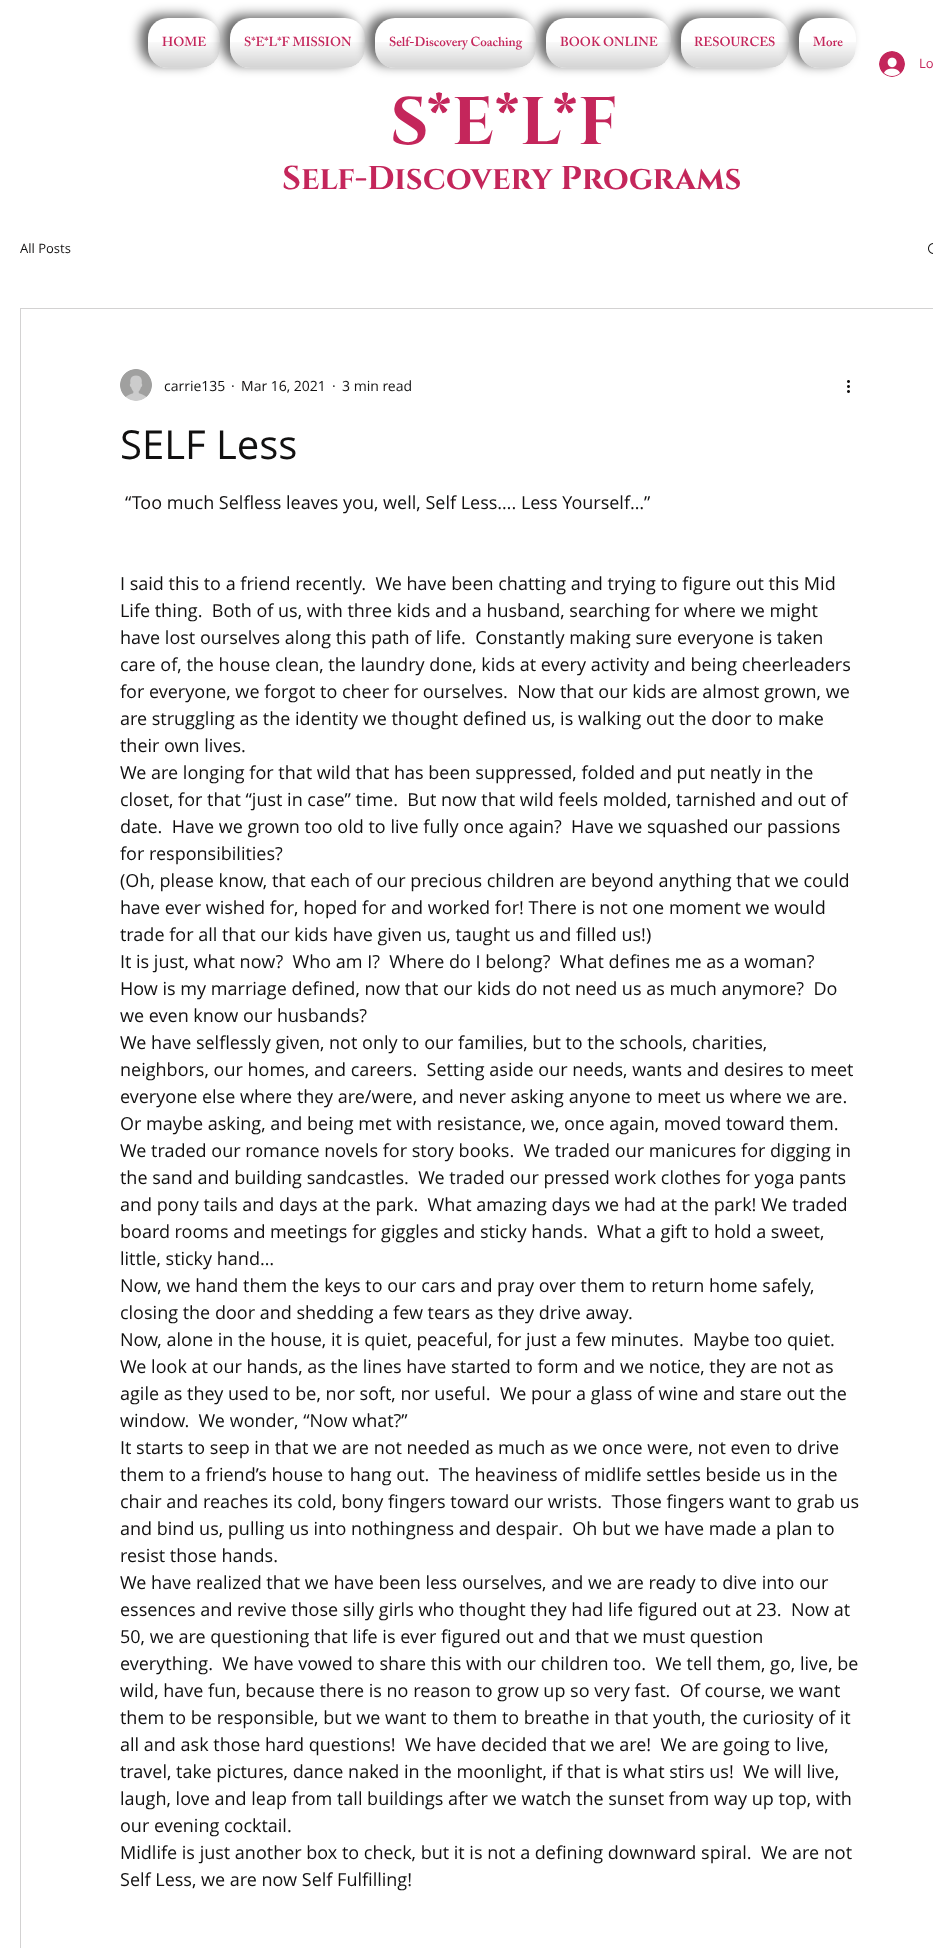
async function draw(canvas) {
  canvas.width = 933
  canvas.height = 1948
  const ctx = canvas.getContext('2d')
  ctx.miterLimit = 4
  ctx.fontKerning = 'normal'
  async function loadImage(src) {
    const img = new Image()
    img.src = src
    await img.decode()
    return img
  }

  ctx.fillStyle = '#fff'
  ctx.fillRect(0, 0, 933, 1948)
  ctx.fillStyle = '#00000099'
  ctx.filter = 'blur(6px)'
  ctx.beginPath()
  ctx.roundRect(140, 15, 72, 50, 20)
  ctx.fill()
  ctx.filter = 'none'
  ctx.fillStyle = '#fff'
  ctx.beginPath()
  ctx.roundRect(148, 18, 72, 50, 20)
  ctx.fill()
  ctx.drawImage(await loadImage('image0.png'), 148, 42, 72, 26)
  ctx.font = '600 13px "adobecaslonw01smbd"'
  ctx.fillStyle = '#c4265b'
  ctx.fillText('HOME', 162, 46)
  ctx.fillStyle = '#00000099'
  ctx.filter = 'blur(6px)'
  ctx.beginPath()
  ctx.roundRect(222, 15, 135, 50, 20)
  ctx.fill()
  ctx.filter = 'none'
  ctx.fillStyle = '#fff'
  ctx.beginPath()
  ctx.roundRect(230, 18, 135, 50, 20)
  ctx.fill()
  ctx.drawImage(await loadImage('image1.png'), 230, 42, 135, 26)
  ctx.fillStyle = '#c4265b'
  ctx.fillText('S*E*L*F MISSION', 244, 46)
  ctx.fillStyle = '#00000099'
  ctx.filter = 'blur(6px)'
  ctx.beginPath()
  ctx.roundRect(367, 15, 161, 50, 20)
  ctx.fill()
  ctx.filter = 'none'
  ctx.fillStyle = '#fff'
  ctx.beginPath()
  ctx.roundRect(375, 18, 161, 50, 20)
  ctx.fill()
  ctx.drawImage(await loadImage('image2.png'), 375, 42, 161, 26)
  ctx.fillStyle = '#c4265b'
  ctx.fillText('Self-Discovery Coaching', 389, 46)
  ctx.fillStyle = '#00000099'
  ctx.filter = 'blur(6px)'
  ctx.beginPath()
  ctx.roundRect(538, 15, 125, 50, 20)
  ctx.fill()
  ctx.filter = 'none'
  ctx.fillStyle = '#fff'
  ctx.beginPath()
  ctx.roundRect(546, 18, 125, 50, 20)
  ctx.fill()
  ctx.drawImage(await loadImage('image3.png'), 546, 42, 125, 26)
  ctx.fillStyle = '#c4265b'
  ctx.fillText('BOOK ONLINE', 560, 46)
  ctx.fillStyle = '#00000099'
  ctx.filter = 'blur(6px)'
  ctx.beginPath()
  ctx.roundRect(673, 15, 108, 50, 20)
  ctx.fill()
  ctx.filter = 'none'
  ctx.fillStyle = '#fff'
  ctx.beginPath()
  ctx.roundRect(681, 18, 108, 50, 20)
  ctx.fill()
  ctx.drawImage(await loadImage('image4.png'), 681, 42, 108, 26)
  ctx.fillStyle = '#c4265b'
  ctx.fillText('RESOURCES', 694, 46)
  ctx.fillStyle = '#00000099'
  ctx.filter = 'blur(6px)'
  ctx.beginPath()
  ctx.roundRect(791, 15, 57, 50, 20)
  ctx.fill()
  ctx.filter = 'none'
  ctx.fillStyle = '#fff'
  ctx.beginPath()
  ctx.roundRect(799, 18, 57, 50, 20)
  ctx.fill()
  ctx.drawImage(await loadImage('image5.png'), 799, 42, 57, 26)
  ctx.fillStyle = '#c4265b'
  ctx.fillText('More', 813, 46)
  ctx.drawImage(await loadImage('image6.png'), 879, 51, 26, 26)
  ctx.font = '13px Open Sans'
  ctx.fillText('Lo', 919, 68)
  ctx.font = 'bold 67px Cinzel'
  ctx.fillText('S*E*L*F', 390, 144)
  ctx.font = 'bold 33px Cinzel'
  ctx.fillText('Self-Discovery Programs', 282, 189)
  ctx.font = '13px Open Sans'
  ctx.fillStyle = '#111010'
  ctx.fillText('All Posts', 20, 253)
  ctx.drawImage(await loadImage('image7.png'), 928, 243, 5, 11)
  ctx.strokeStyle = '#d3d2d2'
  ctx.strokeRect(20.5, 308.5, 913, 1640)
  ctx.drawImage(await loadImage('image8.png'), 120, 369, 32, 32)
  ctx.font = '14px Open Sans'
  ctx.fillText('carrie135', 164, 391)
  ctx.fillText('·', 231, 391)
  ctx.fillText('Mar 16, 2021', 241, 391)
  ctx.fillText('·', 332, 391)
  ctx.fillText('3 min read', 342, 391)
  ctx.drawImage(await loadImage('image9.png'), 847, 380, 3, 13)
  ctx.font = '40px Open Sans'
  ctx.fillText('SELF Less', 120, 459)
  ctx.font = '18px Open Sans'
  ctx.fillText('“Too much Selfless leaves you, well, Self Less…. Less Yourself…”', 125, 509)
  ctx.fillText('I said this to a friend recently.  We have been chatting and trying to figure out this Mid', 120, 590)
  ctx.fillText('Life thing.  Both of us, with three kids and a husband, searching for where we might', 120, 617)
  ctx.fillText('have lost ourselves along this path of life.  Constantly making sure everyone is taken', 120, 644)
  ctx.fillText('care of, the house clean, the laundry done, kids at every activity and being cheerleaders', 120, 671)
  ctx.fillText('for everyone, we forgot to cheer for ourselves.  Now that our kids are almost grown, we', 120, 698)
  ctx.fillText('are struggling as the identity we thought defined us, is walking out the door to make', 120, 725)
  ctx.fillText('their own lives.', 120, 752)
  ctx.fillText('We are longing for that wild that has been suppressed, folded and put neatly in the', 120, 779)
  ctx.fillText('closet, for that “just in case” time.  But now that wild feels molded, tarnished and out of', 120, 806)
  ctx.fillText('date.  Have we grown too old to live fully once again?  Have we squashed our passions', 120, 833)
  ctx.fillText('for responsibilities?', 120, 860)
  ctx.fillText('(Oh, please know, that each of our precious children are beyond anything that we could', 120, 887)
  ctx.fillText('have ever wished for, hoped for and worked for! There is not one moment we would', 120, 914)
  ctx.fillText('trade for all that our kids have given us, taught us and filled us!)', 120, 941)
  ctx.fillText('It is just, what now?  Who am I?  Where do I belong?  What defines me as a woman?', 120, 968)
  ctx.fillText('How is my marriage defined, now that our kids do not need us as much anymore?  Do', 120, 995)
  ctx.fillText('we even know our husbands?', 120, 1022)
  ctx.fillText('We have selflessly given, not only to our families, but to the schools, charities,', 120, 1049)
  ctx.fillText('neighbors, our homes, and careers.  Setting aside our needs, wants and desires to meet', 120, 1076)
  ctx.fillText('everyone else where they are/were, and never asking anyone to meet us where we are.', 120, 1103)
  ctx.fillText('Or maybe asking, and being met with resistance, we, once again, moved toward them.', 120, 1130)
  ctx.fillText('We traded our romance novels for story books.  We traded our manicures for digging in', 120, 1157)
  ctx.fillText('the sand and building sandcastles.  We traded our pressed work clothes for yoga pants', 120, 1184)
  ctx.fillText('and pony tails and days at the park.  What amazing days we had at the park! We traded', 120, 1211)
  ctx.fillText('board rooms and meetings for giggles and sticky hands.  What a gift to hold a sweet,', 120, 1238)
  ctx.fillText('little, sticky hand…', 120, 1265)
  ctx.fillText('Now, we hand them the keys to our cars and pray over them to return home safely,', 120, 1292)
  ctx.fillText('closing the door and shedding a few tears as they drive away.', 120, 1319)
  ctx.fillText('Now, alone in the house, it is quiet, peaceful, for just a few minutes.  Maybe too quiet.', 120, 1346)
  ctx.fillText('We look at our hands, as the lines have started to form and we notice, they are not as', 120, 1373)
  ctx.fillText('agile as they used to be, nor soft, nor useful.  We pour a glass of wine and stare out the', 120, 1400)
  ctx.fillText('window.  We wonder, “Now what?”', 120, 1427)
  ctx.fillText('It starts to seep in that we are not needed as much as we once were, not even to drive', 120, 1454)
  ctx.fillText('them to a friend’s house to hang out.  The heaviness of midlife settles beside us in the', 120, 1481)
  ctx.fillText('chair and reaches its cold, bony fingers toward our wrists.  Those fingers want to grab us', 120, 1508)
  ctx.fillText('and bind us, pulling us into nothingness and despair.  Oh but we have made a plan to', 120, 1535)
  ctx.fillText('resist those hands.', 120, 1562)
  ctx.fillText('We have realized that we have been less ourselves, and we are ready to dive into our', 120, 1589)
  ctx.fillText('essences and revive those silly girls who thought they had life figured out at 23.  Now at', 120, 1616)
  ctx.fillText('50, we are questioning that life is ever figured out and that we must question', 120, 1643)
  ctx.fillText('everything.  We have vowed to share this with our children too.  We tell them, go, live, be', 120, 1670)
  ctx.fillText('wild, have fun, because there is no reason to grow up so very fast.  Of course, we want', 120, 1697)
  ctx.fillText('them to be responsible, but we want to them to breathe in that youth, the curiosity of it', 120, 1724)
  ctx.fillText('all and ask those hard questions!  We have decided that we are!  We are going to live,', 120, 1751)
  ctx.fillText('travel, take pictures, dance naked in the moonlight, if that is what stirs us!  We will live,', 120, 1778)
  ctx.fillText('laugh, love and leap from tall buildings after we watch the sunset from way up top, with', 120, 1805)
  ctx.fillText('our evening cocktail.', 120, 1832)
  ctx.fillText('Midlife is just another box to check, but it is not a defining downward spiral.  We are not', 120, 1859)
  ctx.fillText('Self Less, we are now Self Fulfilling!', 120, 1886)
}

draw(document.querySelector('canvas'))
